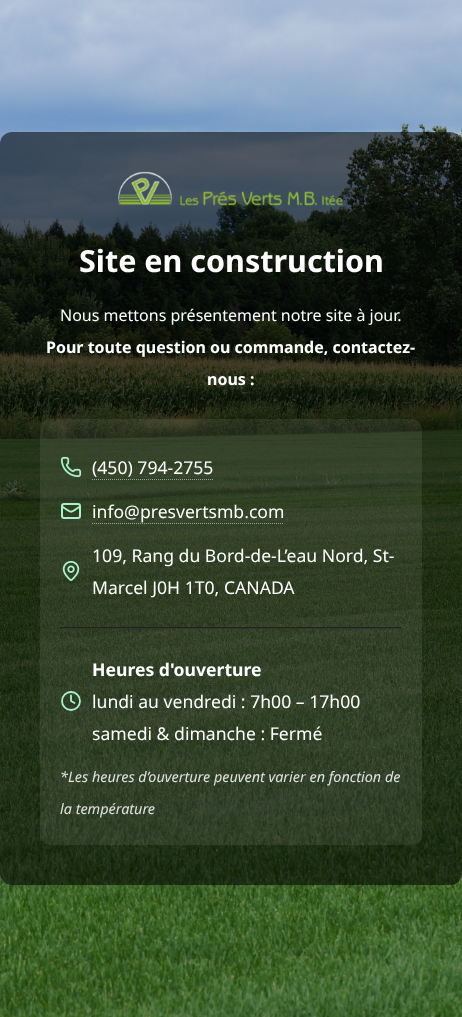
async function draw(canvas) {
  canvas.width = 462
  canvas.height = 1017
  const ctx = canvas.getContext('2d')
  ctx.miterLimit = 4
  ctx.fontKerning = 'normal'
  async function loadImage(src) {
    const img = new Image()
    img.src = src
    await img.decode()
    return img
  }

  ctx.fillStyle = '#fff'
  ctx.fillRect(0, 0, 462, 1017)
  ctx.drawImage(await loadImage('image0.png'), 0, 0, 462, 1017)
  ctx.fillStyle = '#0000008c'
  ctx.beginPath()
  ctx.roundRect(0, 132, 462, 753, 12)
  ctx.fill()
  ctx.drawImage(await loadImage('image1.png'), 118, 171, 226, 35)
  ctx.font = 'bold 30.5px Noto Sans'
  ctx.fillStyle = '#fff'
  ctx.fillText('Site en construction', 79, 272)
  ctx.font = '16px Noto Sans'
  ctx.fillText('Nous mettons présentement notre site à jour.', 60, 321)
  ctx.font = 'bold 16px Noto Sans'
  ctx.fillText('Pour toute question ou commande, contactez-', 46, 353)
  ctx.fillText('nous :', 207, 385)
  ctx.fillStyle = '#ffffff14'
  ctx.beginPath()
  ctx.roundRect(40, 419, 382, 426, 10)
  ctx.fill()
  ctx.drawImage(await loadImage('image2.png'), 60, 456, 22, 22)
  ctx.font = '17.6px Noto Sans'
  ctx.fillStyle = '#fff'
  ctx.fillText('(450) 794-2755', 92, 474)
  ctx.beginPath()
  ctx.moveTo(92, 479.5)
  ctx.lineTo(213, 479.5)
  ctx.strokeStyle = '#ffffff80'
  ctx.setLineDash([1, 1])
  ctx.stroke()
  ctx.beginPath()
  ctx.moveTo(80, 506.5)
  ctx.bezierCurveTo(69, 513.5, 73, 513.5, 62, 506.5)
  ctx.strokeStyle = '#a7f3d0'
  ctx.lineWidth = 1.8
  ctx.lineCap = 'round'
  ctx.lineJoin = 'round'
  ctx.setLineDash([])
  ctx.stroke()
  ctx.beginPath()
  ctx.roundRect(62, 504, 18, 14, 2)
  ctx.lineWidth = 2
  ctx.lineJoin = 'miter'
  ctx.stroke()
  ctx.fillText('info@presvertsmb.com', 92, 518)
  ctx.beginPath()
  ctx.moveTo(92, 523.5)
  ctx.lineTo(284, 523.5)
  ctx.strokeStyle = '#ffffff80'
  ctx.lineWidth = 1
  ctx.lineCap = 'butt'
  ctx.setLineDash([1, 1])
  ctx.stroke()
  ctx.drawImage(await loadImage('image3.png'), 62, 560, 18, 21)
  ctx.fillText('109, Rang du Bord-de-L’eau Nord, St-', 92, 562)
  ctx.fillText('Marcel J0H 1T0, CANADA', 92, 594)
  ctx.fillStyle = '#222'
  ctx.fillRect(60, 627, 342, 1)
  ctx.fillStyle = '#333'
  ctx.fillRect(401, 627, 1, 2)
  ctx.fillRect(60, 628, 342, 1)
  ctx.fillStyle = '#222'
  ctx.fillRect(60, 627, 1, 2)
  ctx.beginPath()
  ctx.moveTo(71, 695.5)
  ctx.lineTo(71, 701)
  ctx.lineTo(74.5, 703)
  ctx.strokeStyle = '#a7f3d0'
  ctx.lineWidth = 1.8
  ctx.lineCap = 'round'
  ctx.lineJoin = 'round'
  ctx.setLineDash([])
  ctx.stroke()
  ctx.beginPath()
  ctx.arc(71, 701, 9, 0, 2 * Math.PI)
  ctx.stroke()
  ctx.font = 'bold 17.6px Noto Sans'
  ctx.fillStyle = '#fff'
  ctx.fillText('Heures d\'ouverture', 92, 676)
  ctx.font = '17.6px Noto Sans'
  ctx.fillText('lundi au vendredi : 7h00 – 17h00', 92, 708)
  ctx.fillText('samedi & dimanche : Fermé', 92, 740)
  ctx.font = 'italic 14.4px Noto Sans'
  ctx.fillStyle = '#e0e3df'
  ctx.fillText('*Les heures d’ouverture peuvent varier en fonction de', 60, 782)
  ctx.fillText('la température', 60, 814)
}

draw(document.querySelector('canvas'))
